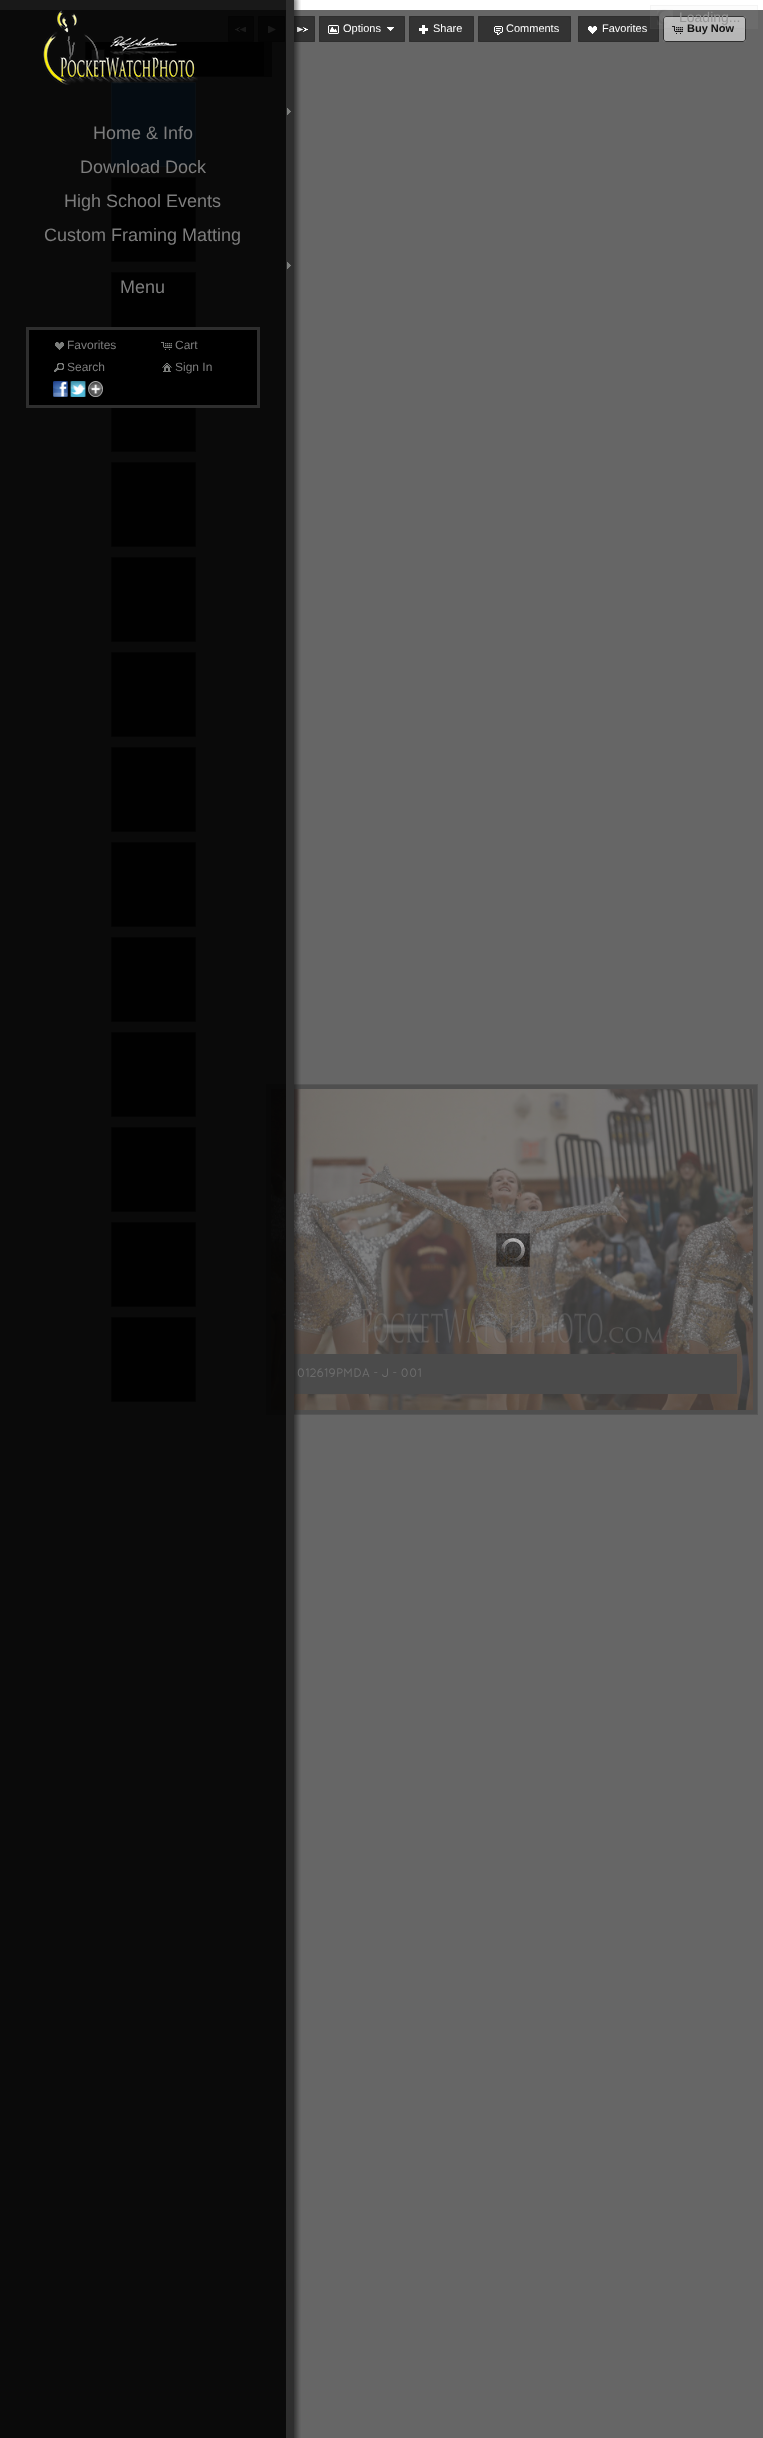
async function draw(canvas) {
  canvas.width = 763
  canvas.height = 2438
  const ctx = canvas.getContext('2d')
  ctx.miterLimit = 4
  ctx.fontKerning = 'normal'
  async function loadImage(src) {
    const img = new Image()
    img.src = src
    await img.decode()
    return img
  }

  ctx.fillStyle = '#fff'
  ctx.fillRect(0, 0, 763, 2438)
  ctx.fillStyle = '#666'
  ctx.fillRect(0, 10, 763, 2428)
  ctx.fillStyle = '#333'
  ctx.fillRect(578, 16, 81, 26)
  ctx.beginPath()
  ctx.roundRect(578.5, 16.5, 80, 25, 2.5)
  ctx.strokeStyle = '#2e2e2e'
  ctx.stroke()
  ctx.drawImage(await loadImage('image16.png'), 663, 16, 83, 26)
  ctx.beginPath()
  ctx.roundRect(663.5, 16.5, 82, 25, 2.5)
  ctx.stroke()
  ctx.drawImage(await loadImage('image17.png'), 672, 26, 11, 8)
  ctx.fillStyle = '#cccccc0f'
  ctx.fillRect(650, 5, 108, 24)
  ctx.font = 'bold 11px Liberation Sans'
  ctx.fillStyle = '#111'
  ctx.fillText('Buy Now', 687, 32)
  ctx.strokeStyle = '#7a7a7a0f'
  ctx.strokeRect(650.5, 5.5, 107, 23)
  ctx.drawImage(await loadImage('image0.png'), 657, 9, 16, 16)
  ctx.font = '14px Liberation Sans'
  ctx.fillStyle = '#959595'
  ctx.fillText('Loading...', 679, 22)
  ctx.fillStyle = '#4f4f4f'
  ctx.fillRect(267, 1085, 490, 329)
  ctx.fillStyle = '#333'
  ctx.fillRect(228, 16, 26, 26)
  ctx.beginPath()
  ctx.roundRect(228.5, 16.5, 25, 25, 2.5)
  ctx.strokeStyle = '#2e2e2e'
  ctx.stroke()
  ctx.drawImage(await loadImage('image8.png'), 235, 27, 11, 5)
  ctx.fillRect(258, 16, 27, 26)
  ctx.beginPath()
  ctx.roundRect(258.5, 16.5, 26, 25, 2.5)
  ctx.stroke()
  ctx.drawImage(await loadImage('image9.png'), 268, 26, 8, 7)
  ctx.fillRect(294, 16, 21, 26)
  ctx.beginPath()
  ctx.roundRect(289.5, 16.5, 25, 25, 2.5)
  ctx.stroke()
  ctx.drawImage(await loadImage('image10.png'), 297, 27, 11, 5)
  ctx.fillStyle = '#0a0a0a'
  ctx.fillRect(86, 42, 178, 34)
  ctx.fillStyle = '#2e2e2e'
  ctx.fillRect(85, 76, 68, 1)
  ctx.fillRect(85, 42, 1, 35)
  ctx.fillStyle = '#7d7d7d'
  ctx.fillRect(92, 56, 12, 10)
  ctx.fillStyle = '#838383'
  ctx.fillRect(91, 50, 14, 6)
  ctx.strokeRect(91.5, 49.5, 13, 17)
  ctx.fillStyle = '#333'
  ctx.beginPath()
  ctx.rect(110.5, 49.5, 13, 17)
  ctx.fill()
  ctx.stroke()
  ctx.beginPath()
  ctx.rect(129.5, 49.5, 13, 17)
  ctx.fill()
  ctx.stroke()
  ctx.fillStyle = '#2e2e2e'
  ctx.fillRect(264, 42, 8, 35)
  ctx.fillRect(153, 76, 119, 1)
  ctx.fillStyle = '#3279bb'
  ctx.beginPath()
  ctx.rect(111.5, 82.5, 84, 84)
  ctx.fill()
  ctx.strokeStyle = '#74a0cc'
  ctx.stroke()
  ctx.fillStyle = '#111'
  ctx.beginPath()
  ctx.rect(111.5, 177.5, 84, 84)
  ctx.fill()
  ctx.strokeStyle = '#2e2e2e'
  ctx.stroke()
  ctx.fillRect(112, 273, 83, 54)
  ctx.strokeRect(111.5, 272.5, 84, 84)
  ctx.fillRect(112, 408, 83, 43)
  ctx.strokeRect(111.5, 367.5, 84, 84)
  ctx.beginPath()
  ctx.rect(111.5, 462.5, 84, 84)
  ctx.fill()
  ctx.stroke()
  ctx.beginPath()
  ctx.rect(111.5, 557.5, 84, 84)
  ctx.fill()
  ctx.stroke()
  ctx.beginPath()
  ctx.rect(111.5, 652.5, 84, 84)
  ctx.fill()
  ctx.stroke()
  ctx.beginPath()
  ctx.rect(111.5, 747.5, 84, 84)
  ctx.fill()
  ctx.stroke()
  ctx.beginPath()
  ctx.rect(111.5, 842.5, 84, 84)
  ctx.fill()
  ctx.stroke()
  ctx.beginPath()
  ctx.rect(111.5, 937.5, 84, 84)
  ctx.fill()
  ctx.stroke()
  ctx.beginPath()
  ctx.rect(111.5, 1032.5, 84, 84)
  ctx.fill()
  ctx.stroke()
  ctx.beginPath()
  ctx.rect(111.5, 1127.5, 84, 84)
  ctx.fill()
  ctx.stroke()
  ctx.beginPath()
  ctx.rect(111.5, 1222.5, 84, 84)
  ctx.fill()
  ctx.stroke()
  ctx.beginPath()
  ctx.rect(111.5, 1317.5, 84, 84)
  ctx.fill()
  ctx.stroke()
  ctx.fillStyle = '#131313'
  ctx.fillRect(497, 1234, 32, 32)
  ctx.drawImage(await loadImage('image18.png'), 501, 1238, 24, 24)
  ctx.strokeStyle = '#262626'
  ctx.strokeRect(496.5, 1233.5, 33, 33)
  ctx.strokeStyle = '#575757'
  ctx.strokeRect(266.5, 1084.5, 491, 330)
  ctx.drawImage(await loadImage('image19.png'), 271, 1089, 482, 321)
  ctx.fillStyle = '#4b4b4b'
  ctx.fillRect(294, 1354, 443, 40)
  ctx.save()
  ctx.beginPath()
  ctx.rect(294, 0, 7, 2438)
  ctx.clip()
  ctx.fillStyle = '#00000080'
  ctx.filter = 'blur(2.5px)'
  ctx.beginPath()
  ctx.rect(-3, -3, 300, 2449)
  ctx.fill()
  ctx.filter = 'none'
  ctx.restore()
  ctx.fillStyle = '#000000e6'
  ctx.fillRect(0, 0, 286, 2438)
  ctx.fillStyle = '#2e2e2e'
  ctx.fillRect(286, 0, 8, 2438)
  ctx.drawImage(await loadImage('image1.png'), 43, 10, 155, 75)
  ctx.drawImage(await loadImage('image2.png'), 287, 108, 4, 7)
  ctx.font = '18px Liberation Sans'
  ctx.fillStyle = '#7d7d7d'
  ctx.fillText('Home & Info', 93, 139)
  ctx.fillText('Download Dock', 80, 173)
  ctx.fillText('High School Events', 64, 207)
  ctx.fillText('Custom Framing Matting', 44, 241)
  ctx.drawImage(await loadImage('image2.png'), 287, 262, 4, 7)
  ctx.fillText('Menu', 120, 293)
  ctx.fillStyle = '#000'
  ctx.beginPath()
  ctx.rect(27.5, 328.5, 231, 78)
  ctx.fill()
  ctx.strokeStyle = '#2e2e2e'
  ctx.lineWidth = 3
  ctx.stroke()
  ctx.drawImage(await loadImage('image3.png'), 55, 342, 9, 8)
  ctx.font = '12px Liberation Sans'
  ctx.fillStyle = '#7d7d7d'
  ctx.fillText('Favorites', 67, 349)
  ctx.drawImage(await loadImage('image4.png'), 161, 342, 11, 8)
  ctx.fillText('Cart', 175, 349)
  ctx.drawImage(await loadImage('image5.png'), 54, 363, 10, 9)
  ctx.fillText('Search', 67, 371)
  ctx.drawImage(await loadImage('image6.png'), 162, 363, 10, 9)
  ctx.fillText('Sign In', 175, 371)
  ctx.drawImage(await loadImage('image7.png'), 53, 381, 50, 16)
  ctx.fillStyle = '#333'
  ctx.fillRect(319, 16, 86, 26)
  ctx.beginPath()
  ctx.roundRect(319.5, 16.5, 85, 25, 2.5)
  ctx.lineWidth = 1
  ctx.stroke()
  ctx.drawImage(await loadImage('image11.png'), 328, 25, 11, 9)
  ctx.font = '11px Liberation Sans'
  ctx.fillStyle = '#fff'
  ctx.fillText('Options', 343, 32)
  ctx.drawImage(await loadImage('image12.png'), 387, 27, 7, 4)
  ctx.fillStyle = '#333'
  ctx.fillRect(409, 16, 65, 26)
  ctx.beginPath()
  ctx.roundRect(409.5, 16.5, 64, 25, 2.5)
  ctx.stroke()
  ctx.drawImage(await loadImage('image13.png'), 419, 25, 9, 9)
  ctx.fillStyle = '#fff'
  ctx.fillText('Share', 433, 32)
  ctx.fillStyle = '#333'
  ctx.fillRect(478, 16, 93, 26)
  ctx.beginPath()
  ctx.roundRect(478.5, 16.5, 92, 25, 2.5)
  ctx.stroke()
  ctx.drawImage(await loadImage('image14.png'), 494, 26, 9, 9)
  ctx.fillStyle = '#fff'
  ctx.fillText('Comments', 506, 32)
  ctx.drawImage(await loadImage('image15.png'), 588, 26, 9, 8)
  ctx.fillText('Favorites', 602, 32)
  ctx.font = 'bold 12px Quicksand'
  ctx.fillStyle = '#6c6c6c'
  ctx.fillText('012619PMDA - J - 001', 297, 1377)
}

draw(document.querySelector('canvas'))
